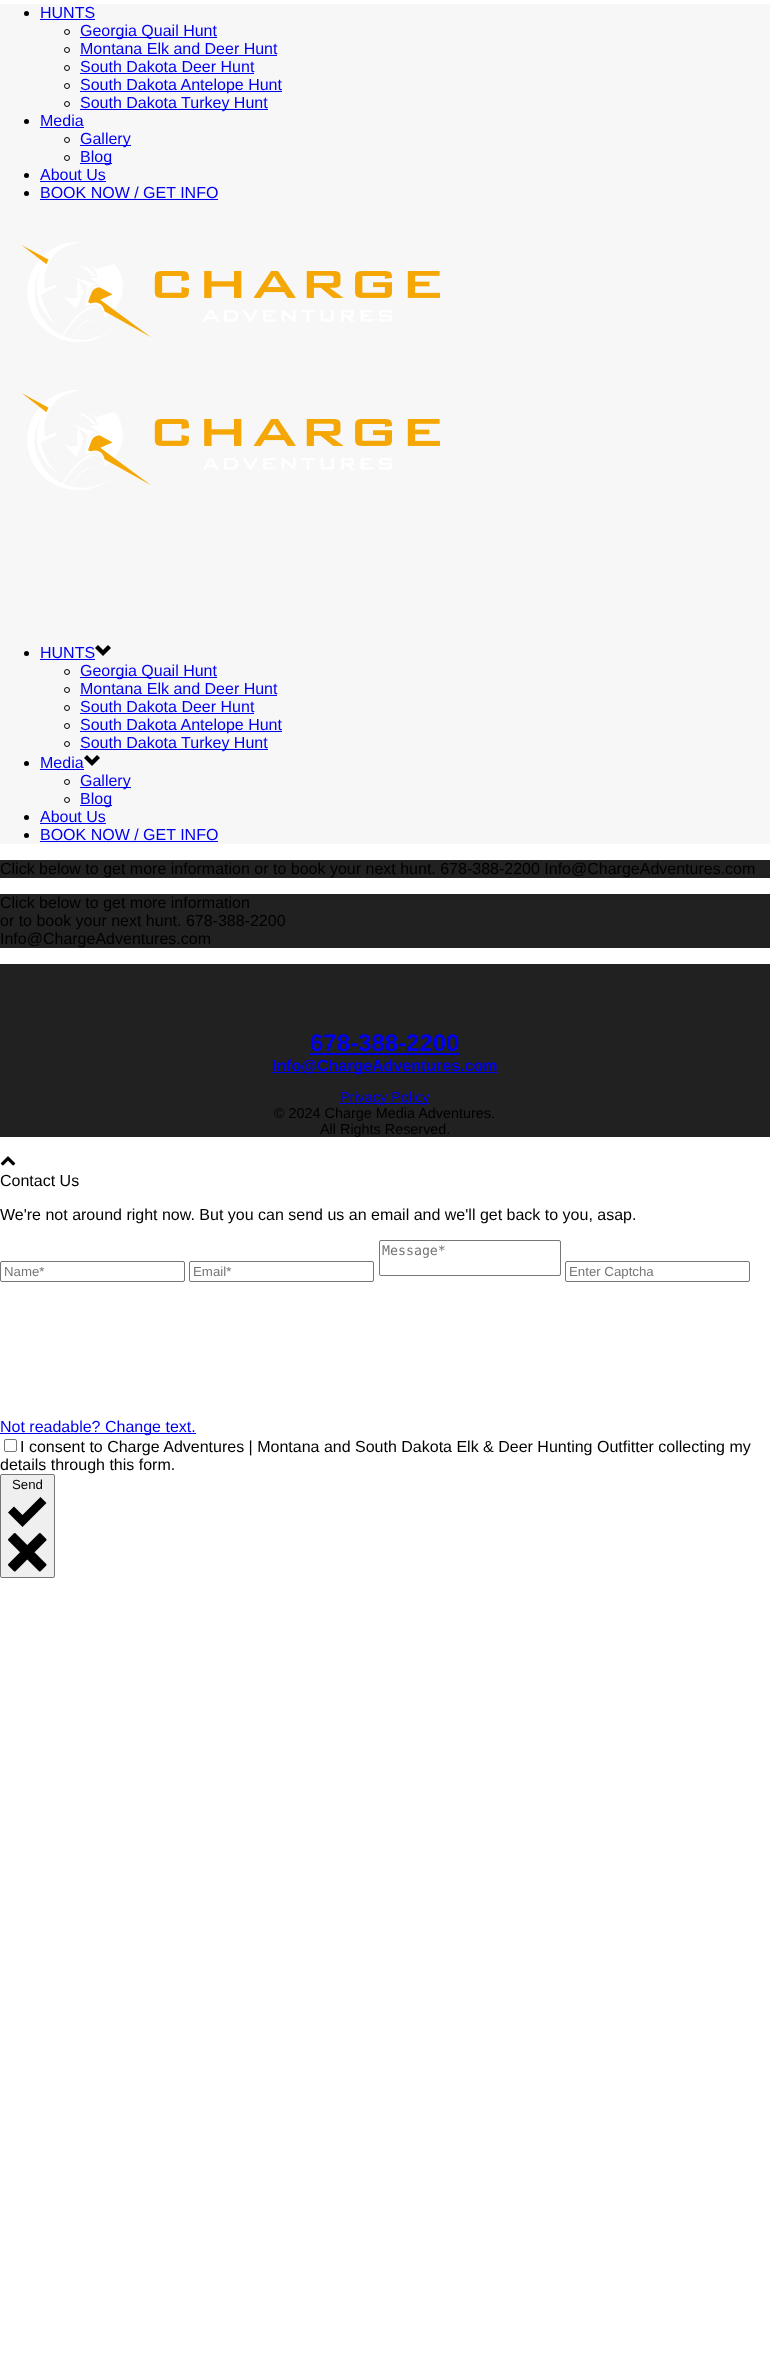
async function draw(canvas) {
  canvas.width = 770
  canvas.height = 2365
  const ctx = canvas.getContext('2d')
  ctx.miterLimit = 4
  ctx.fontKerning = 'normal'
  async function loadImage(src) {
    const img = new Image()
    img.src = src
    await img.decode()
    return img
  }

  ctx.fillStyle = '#fff'
  ctx.fillRect(0, 0, 770, 2365)
  ctx.fillStyle = '#f7f7f7'
  ctx.fillRect(0, 4, 770, 840)
  ctx.fillStyle = '#000'
  ctx.beginPath()
  ctx.arc(26.5, 13.5, 2.5, 0, 2 * Math.PI)
  ctx.fill()
  ctx.font = '16px Liberation Sans'
  ctx.fillStyle = '#00e'
  ctx.fillText('HUNTS', 40, 18)
  ctx.fillRect(40, 19, 55, 1)
  ctx.beginPath()
  ctx.arc(67, 32, 2.5, 0, 2 * Math.PI)
  ctx.strokeStyle = '#000'
  ctx.stroke()
  ctx.fillRect(80, 37, 137, 1)
  ctx.fillText('Georgia Quail Hunt', 80, 36)
  ctx.beginPath()
  ctx.arc(67, 50, 2.5, 0, 2 * Math.PI)
  ctx.stroke()
  ctx.fillText('Montana Elk and Deer Hunt', 80, 54)
  ctx.fillRect(80, 55, 197, 1)
  ctx.beginPath()
  ctx.arc(67, 68, 2.5, 0, 2 * Math.PI)
  ctx.stroke()
  ctx.fillText('South Dakota Deer Hunt', 80, 72)
  ctx.fillRect(80, 73, 174, 1)
  ctx.beginPath()
  ctx.arc(67, 86, 2.5, 0, 2 * Math.PI)
  ctx.stroke()
  ctx.fillRect(80, 91, 202, 1)
  ctx.fillText('South Dakota Antelope Hunt', 80, 90)
  ctx.beginPath()
  ctx.arc(67, 104, 2.5, 0, 2 * Math.PI)
  ctx.stroke()
  ctx.fillRect(80, 109, 188, 1)
  ctx.fillText('South Dakota Turkey Hunt', 80, 108)
  ctx.fillStyle = '#000'
  ctx.beginPath()
  ctx.arc(26.5, 121.5, 2.5, 0, 2 * Math.PI)
  ctx.fill()
  ctx.fillStyle = '#00e'
  ctx.fillText('Media', 40, 126)
  ctx.fillRect(40, 127, 44, 1)
  ctx.beginPath()
  ctx.arc(67, 140, 2.5, 0, 2 * Math.PI)
  ctx.stroke()
  ctx.fillRect(80, 145, 51, 1)
  ctx.fillText('Gallery', 80, 144)
  ctx.beginPath()
  ctx.arc(67, 158, 2.5, 0, 2 * Math.PI)
  ctx.stroke()
  ctx.fillRect(80, 163, 32, 1)
  ctx.fillText('Blog', 80, 162)
  ctx.fillStyle = '#000'
  ctx.beginPath()
  ctx.arc(26.5, 175.5, 2.5, 0, 2 * Math.PI)
  ctx.fill()
  ctx.fillStyle = '#00e'
  ctx.fillText('About Us', 40, 180)
  ctx.fillRect(40, 181, 66, 1)
  ctx.fillStyle = '#000'
  ctx.beginPath()
  ctx.arc(26.5, 193.5, 2.5, 0, 2 * Math.PI)
  ctx.fill()
  ctx.fillStyle = '#00e'
  ctx.fillText('BOOK NOW / GET INFO', 40, 198)
  ctx.fillRect(40, 199, 178, 1)
  ctx.drawImage(await loadImage('image0.png'), 22, 242, 418, 100)
  ctx.drawImage(await loadImage('image0.png'), 22, 390, 418, 100)
  ctx.fillStyle = '#000'
  ctx.beginPath()
  ctx.arc(26.5, 653.5, 2.5, 0, 2 * Math.PI)
  ctx.fill()
  ctx.fillStyle = '#00e'
  ctx.fillText('HUNTS', 40, 658)
  ctx.fillRect(40, 659, 55, 1)
  ctx.drawImage(await loadImage('image1.png'), 95, 645, 16, 11)
  ctx.beginPath()
  ctx.arc(67, 672, 2.5, 0, 2 * Math.PI)
  ctx.stroke()
  ctx.fillRect(80, 677, 137, 1)
  ctx.fillText('Georgia Quail Hunt', 80, 676)
  ctx.beginPath()
  ctx.arc(67, 690, 2.5, 0, 2 * Math.PI)
  ctx.stroke()
  ctx.fillText('Montana Elk and Deer Hunt', 80, 694)
  ctx.fillRect(80, 695, 197, 1)
  ctx.beginPath()
  ctx.arc(67, 708, 2.5, 0, 2 * Math.PI)
  ctx.stroke()
  ctx.fillText('South Dakota Deer Hunt', 80, 712)
  ctx.fillRect(80, 713, 174, 1)
  ctx.beginPath()
  ctx.arc(67, 726, 2.5, 0, 2 * Math.PI)
  ctx.stroke()
  ctx.fillRect(80, 731, 202, 1)
  ctx.fillText('South Dakota Antelope Hunt', 80, 730)
  ctx.beginPath()
  ctx.arc(67, 744, 2.5, 0, 2 * Math.PI)
  ctx.stroke()
  ctx.fillRect(80, 749, 188, 1)
  ctx.fillText('South Dakota Turkey Hunt', 80, 748)
  ctx.fillStyle = '#000'
  ctx.beginPath()
  ctx.arc(26.5, 763.5, 2.5, 0, 2 * Math.PI)
  ctx.fill()
  ctx.fillStyle = '#00e'
  ctx.fillText('Media', 40, 768)
  ctx.fillRect(40, 769, 44, 1)
  ctx.drawImage(await loadImage('image1.png'), 84, 755, 16, 11)
  ctx.beginPath()
  ctx.arc(67, 782, 2.5, 0, 2 * Math.PI)
  ctx.stroke()
  ctx.fillRect(80, 787, 51, 1)
  ctx.fillText('Gallery', 80, 786)
  ctx.beginPath()
  ctx.arc(67, 800, 2.5, 0, 2 * Math.PI)
  ctx.stroke()
  ctx.fillRect(80, 805, 32, 1)
  ctx.fillText('Blog', 80, 804)
  ctx.fillStyle = '#000'
  ctx.beginPath()
  ctx.arc(26.5, 817.5, 2.5, 0, 2 * Math.PI)
  ctx.fill()
  ctx.fillStyle = '#00e'
  ctx.fillText('About Us', 40, 822)
  ctx.fillRect(40, 823, 66, 1)
  ctx.fillStyle = '#000'
  ctx.beginPath()
  ctx.arc(26.5, 835.5, 2.5, 0, 2 * Math.PI)
  ctx.fill()
  ctx.fillStyle = '#00e'
  ctx.fillText('BOOK NOW / GET INFO', 40, 840)
  ctx.fillRect(40, 841, 178, 1)
  ctx.fillStyle = '#212121'
  ctx.fillRect(0, 860, 770, 18)
  ctx.fillStyle = '#000'
  ctx.fillText('Click below to get more information or to book your next hunt. 678-388-2200 Info@ChargeAdventures.com', 0, 874)
  ctx.fillStyle = '#212121'
  ctx.fillRect(0, 894, 770, 54)
  ctx.fillStyle = '#000'
  ctx.fillText('Click below to get more information', 0, 908)
  ctx.fillText('or to book your next hunt. 678-388-2200', 0, 926)
  ctx.fillText('Info@ChargeAdventures.com', 0, 944)
  ctx.fillStyle = '#212121'
  ctx.fillRect(0, 964, 770, 173)
  ctx.font = 'bold 24px Liberation Sans'
  ctx.fillStyle = '#00e'
  ctx.fillText('678-388-2200', 310, 1051)
  ctx.fillRect(310, 1053, 150, 2)
  ctx.fillRect(272, 1072, 226, 1)
  ctx.font = 'bold 16px Liberation Sans'
  ctx.fillText('Info@ChargeAdventures.com', 272, 1071)
  ctx.fillRect(340, 1103, 90, 1)
  ctx.font = '14.4px Liberation Sans'
  ctx.fillText('Privacy Policy', 340, 1102)
  ctx.fillStyle = '#000'
  ctx.fillText('© 2024 Charge Media Adventures.', 274, 1118)
  ctx.fillText('All Rights Reserved.', 320, 1134)
  ctx.drawImage(await loadImage('image2.png'), 0, 1156, 16, 10)
  ctx.font = '16px Liberation Sans'
  ctx.fillText('Contact Us', 0, 1186)
  ctx.fillText('We\'re not around right now. But you can send us an email and we\'ll get back to you, asap.', 0, 1220)
  ctx.beginPath()
  ctx.roundRect(379.5, 1240.5, 181, 35, 1.5)
  ctx.strokeStyle = '#767676'
  ctx.stroke()
  ctx.font = '13.25px DejaVu Sans Mono'
  ctx.fillStyle = '#757575'
  ctx.fillText('Message*', 382, 1255)
  ctx.beginPath()
  ctx.roundRect(0.5, 1261.5, 184, 20, 1.5)
  ctx.stroke()
  ctx.font = '13.25px Liberation Sans'
  ctx.fillText('Name*', 4, 1276)
  ctx.beginPath()
  ctx.roundRect(189.5, 1261.5, 184, 20, 1.5)
  ctx.stroke()
  ctx.fillText('Email*', 193, 1276)
  ctx.beginPath()
  ctx.roundRect(565.5, 1261.5, 184, 20, 1.5)
  ctx.stroke()
  ctx.fillText('Enter Captcha', 569, 1276)
  ctx.fillStyle = '#00e'
  ctx.fillRect(0, 1433, 196, 1)
  ctx.font = '16px Liberation Sans'
  ctx.fillText('Not readable? Change text.', 0, 1432)
  ctx.beginPath()
  ctx.roundRect(4.5, 1439.5, 12, 12, 1.5)
  ctx.stroke()
  ctx.fillStyle = '#000'
  ctx.fillText('I consent to Charge Adventures | Montana and South Dakota Elk & Deer Hunting Outfitter collecting my', 20, 1452)
  ctx.fillText('details through this form.', 0, 1470)
  ctx.fillStyle = '#efefef'
  ctx.beginPath()
  ctx.roundRect(0.5, 1474.5, 54, 103, 1.5)
  ctx.fill()
  ctx.stroke()
  ctx.font = '13.25px Liberation Sans'
  ctx.fillStyle = '#000'
  ctx.fillText('Send', 12, 1489)
  ctx.beginPath()
  ctx.moveTo(40.5, 1497)
  ctx.lineTo(22.5, 1515)
  ctx.lineTo(14, 1506.5)
  ctx.lineTo(8, 1512.5)
  ctx.lineTo(22.5, 1527)
  ctx.lineTo(46.5, 1503)
  ctx.closePath()
  ctx.fill()
  ctx.drawImage(await loadImage('image3.png'), 8, 1533, 39, 39)
}

draw(document.querySelector('canvas'))
